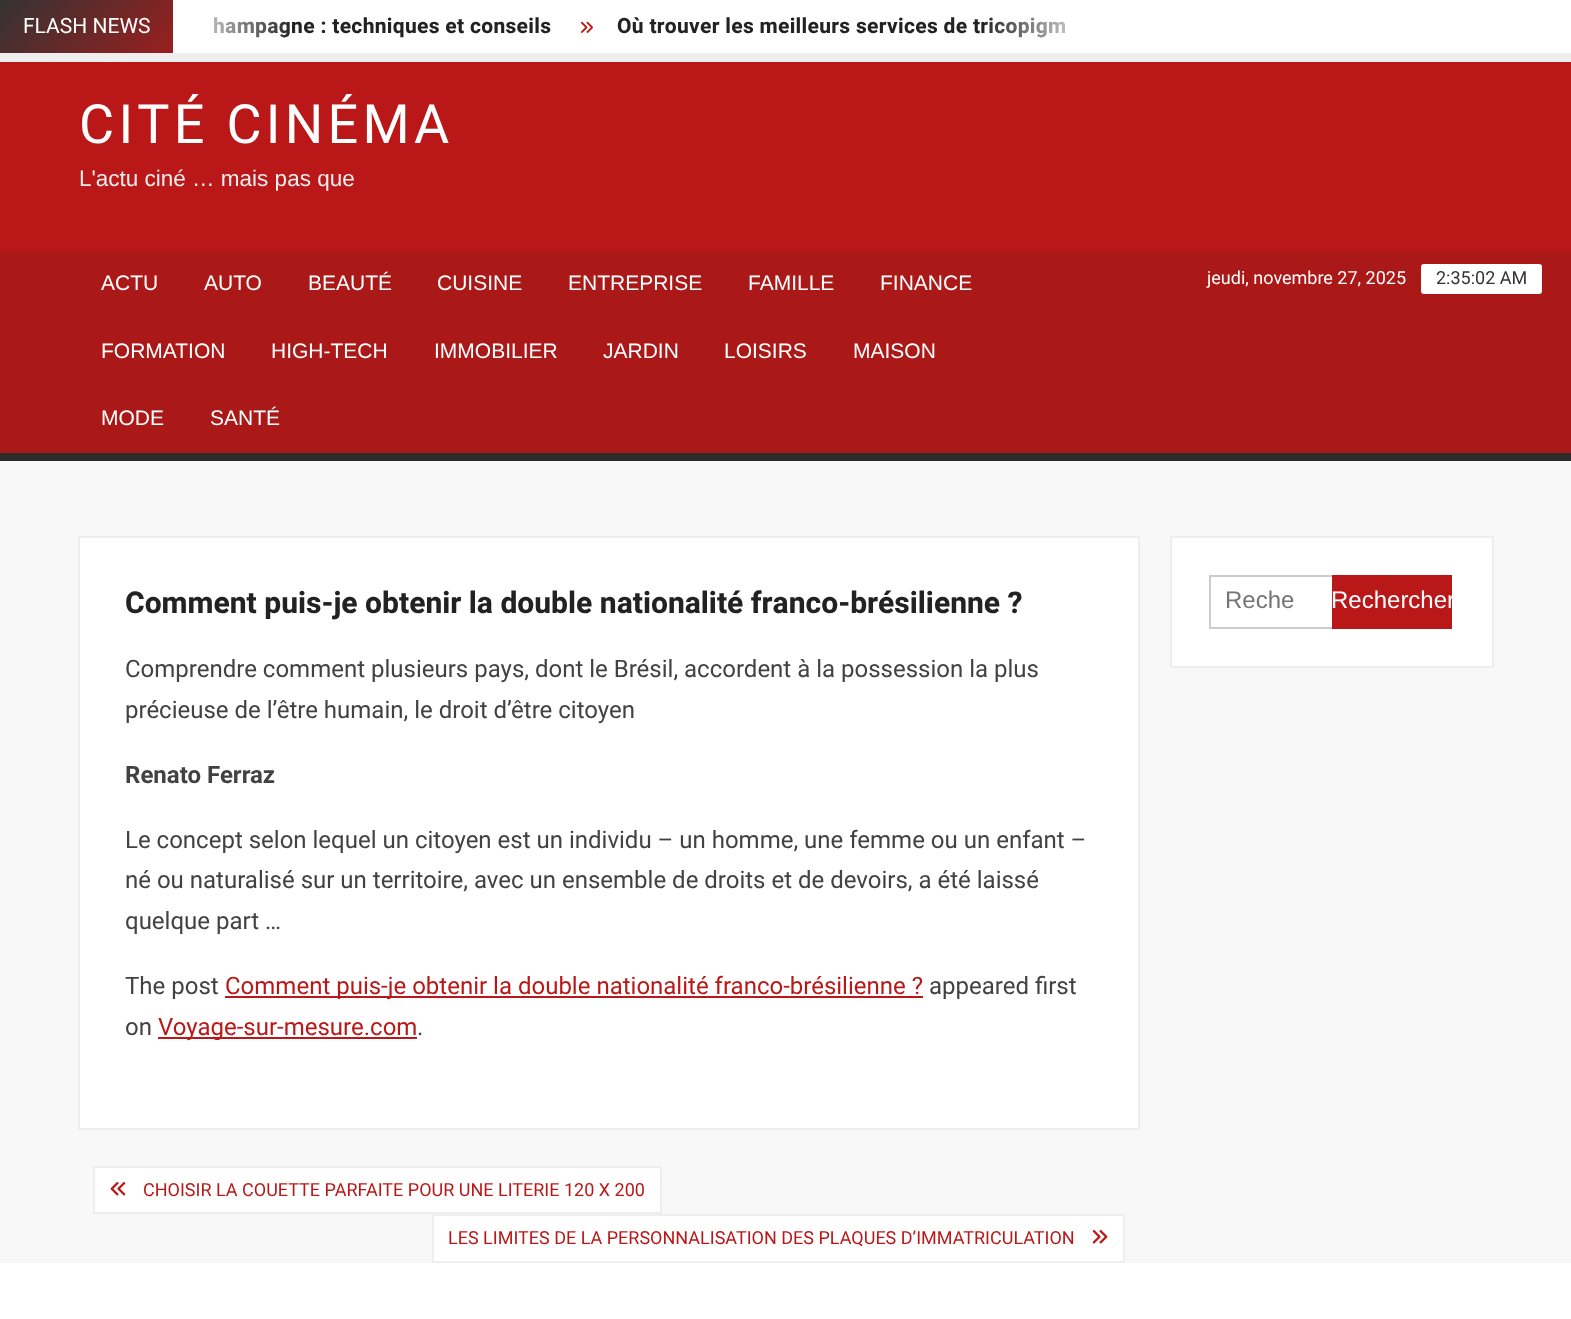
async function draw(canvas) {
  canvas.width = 1571
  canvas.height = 1319
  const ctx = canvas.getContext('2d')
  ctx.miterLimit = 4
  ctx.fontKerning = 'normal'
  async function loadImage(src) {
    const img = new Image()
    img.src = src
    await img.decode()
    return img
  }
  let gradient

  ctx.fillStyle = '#f8f8f8'
  ctx.fillRect(0, 0, 1571, 1319)
  ctx.fillStyle = '#fff'
  ctx.fillRect(174, 0, 1397, 53)
  gradient = ctx.createLinearGradient(570, 330, 120, -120)
  gradient.addColorStop(0, '#ba1818')
  gradient.addColorStop(0.33, '#eee')
  gradient.addColorStop(0.67, '#ba1818')
  gradient.addColorStop(1, '#333')
  ctx.fillStyle = gradient
  ctx.fillRect(0, 0, 173, 53)
  ctx.font = '21px Heebo'
  ctx.fillStyle = '#fff'
  ctx.fillText('FLASH NEWS', 23, 33)
  ctx.letterSpacing = '0.3px'
  ctx.font = 'bold 21px Heebo'
  ctx.fillStyle = '#222'
  ctx.fillText('hampagne : techniques et conseils', 213, 33)
  gradient = ctx.createLinearGradient(173, 26, 293, 26)
  gradient.addColorStop(0, '#fff')
  gradient.addColorStop(1, '#ffffff00')
  ctx.fillStyle = gradient
  ctx.fillRect(173, 0, 117, 53)
  ctx.drawImage(await loadImage('image0.png'), 580, 21, 13, 12)
  ctx.fillStyle = '#222'
  ctx.fillText('Où trouver les meilleurs services de tricopigm', 617, 33)
  gradient = ctx.createLinearGradient(981, 26, 1101, 26)
  gradient.addColorStop(0, '#ffffff00')
  gradient.addColorStop(1, '#fff')
  ctx.fillStyle = gradient
  ctx.fillRect(984, 17, 82, 21)
  ctx.fillStyle = '#eee'
  ctx.fillRect(0, 53, 1571, 9)
  ctx.fillStyle = '#ba1818'
  ctx.fillRect(0, 62, 1571, 189)
  ctx.letterSpacing = '4.25px'
  ctx.font = '54px Heebo'
  ctx.fillStyle = '#fff'
  ctx.fillText('CITÉ CINÉMA', 79, 143)
  ctx.letterSpacing = '0px'
  ctx.font = '22.5px Arimo'
  ctx.fillStyle = '#eee'
  ctx.fillText('L\'actu ciné … mais pas que', 79, 186)
  ctx.fillStyle = '#aa1818'
  ctx.fillRect(0, 251, 1571, 202)
  ctx.fillStyle = '#2c2c2c'
  ctx.fillRect(0, 453, 1571, 8)
  ctx.font = '21px Arimo'
  ctx.fillStyle = '#fff'
  ctx.fillText('ACTU', 101, 290)
  ctx.fillText('AUTO', 204, 290)
  ctx.fillText('BEAUTÉ', 308, 290)
  ctx.fillText('CUISINE', 437, 290)
  ctx.fillText('ENTREPRISE', 568, 290)
  ctx.fillText('FAMILLE', 748, 290)
  ctx.fillText('FINANCE', 880, 290)
  ctx.fillText('FORMATION', 101, 358)
  ctx.fillText('HIGH-TECH', 271, 358)
  ctx.fillText('IMMOBILIER', 434, 358)
  ctx.fillText('JARDIN', 603, 358)
  ctx.fillText('LOISIRS', 724, 358)
  ctx.fillText('MAISON', 853, 358)
  ctx.fillText('MODE', 101, 425)
  ctx.fillText('SANTÉ', 210, 425)
  ctx.font = '18px Roboto'
  ctx.fillText('jeudi, novembre 27, 2025', 1207, 284)
  ctx.beginPath()
  ctx.roundRect(1421, 264, 121, 30, 3)
  ctx.fill()
  ctx.fillStyle = '#333'
  ctx.fillText('2:35:02 AM', 1436, 284)
  ctx.fillStyle = '#fff'
  ctx.beginPath()
  ctx.rect(79, 537, 1060, 592)
  ctx.fill()
  ctx.strokeStyle = '#eee'
  ctx.lineWidth = 2
  ctx.stroke()
  ctx.font = 'bold 30px Heebo'
  ctx.fillStyle = '#222'
  ctx.fillText('Comment puis-je obtenir la double nationalité franco-brésilienne ?', 125, 613)
  ctx.font = '24px Roboto'
  ctx.fillStyle = '#424242'
  ctx.fillText('Comprendre comment plusieurs pays, dont le Brésil, accordent à la possession la plus', 125, 677)
  ctx.fillText('précieuse de l’être humain, le droit d’être citoyen', 125, 718)
  ctx.font = 'bold 24px Roboto'
  ctx.fillText('Renato Ferraz', 125, 783)
  ctx.font = '24px Roboto'
  ctx.fillText('Le concept selon lequel un citoyen est un individu – un homme, une femme ou un enfant –', 125, 848)
  ctx.fillText('né ou naturalisé sur un territoire, avec un ensemble de droits et de devoirs, a été laissé', 125, 888)
  ctx.fillText('quelque part …', 125, 929)
  ctx.fillText('The post', 125, 994)
  ctx.fillStyle = '#ba1818'
  ctx.fillRect(225, 996, 698, 2)
  ctx.fillText('Comment puis-je obtenir la double nationalité franco-brésilienne ?', 225, 994)
  ctx.fillStyle = '#424242'
  ctx.fillText('appeared first', 929, 994)
  ctx.fillText('on', 125, 1035)
  ctx.fillStyle = '#ba1818'
  ctx.fillRect(158, 1037, 259, 2)
  ctx.fillText('Voyage-sur-mesure.com', 158, 1035)
  ctx.fillStyle = '#424242'
  ctx.fillText('.', 417, 1035)
  ctx.fillStyle = '#fff'
  ctx.beginPath()
  ctx.rect(94, 1167, 567, 46)
  ctx.fill()
  ctx.stroke()
  ctx.drawImage(await loadImage('image1.png'), 110, 1182, 16, 14)
  ctx.font = '18px Roboto'
  ctx.fillStyle = '#ba1818'
  ctx.fillText('CHOISIR LA COUETTE PARFAITE POUR UNE LITERIE 120 X 200', 143, 1196)
  ctx.fillStyle = '#fff'
  ctx.beginPath()
  ctx.rect(433, 1215, 691, 47)
  ctx.fill()
  ctx.stroke()
  ctx.fillStyle = '#ba1818'
  ctx.fillText('LES LIMITES DE LA PERSONNALISATION DES PLAQUES D’IMMATRICULATION', 448, 1244)
  ctx.drawImage(await loadImage('image2.png'), 1092, 1230, 16, 14)
  ctx.fillStyle = '#fff'
  ctx.beginPath()
  ctx.rect(1171, 537, 322, 130)
  ctx.fill()
  ctx.stroke()
  ctx.strokeStyle = '#ccc'
  ctx.strokeRect(1210, 576, 123, 52)
  ctx.font = '24px Arimo'
  ctx.fillStyle = '#757575'
  ctx.fillText('Reche', 1225, 608)
  ctx.fillStyle = '#ba1818'
  ctx.fillRect(1332, 575, 120, 54)
  ctx.save()
  ctx.beginPath()
  ctx.rect(1332, 575, 120, 54)
  ctx.clip()
  ctx.fillStyle = '#fff'
  ctx.fillText('Rechercher', 1331, 608)
  ctx.restore()
  ctx.fillStyle = '#fff'
  ctx.fillRect(0, 1263, 1571, 56)
}

draw(document.querySelector('canvas'))
